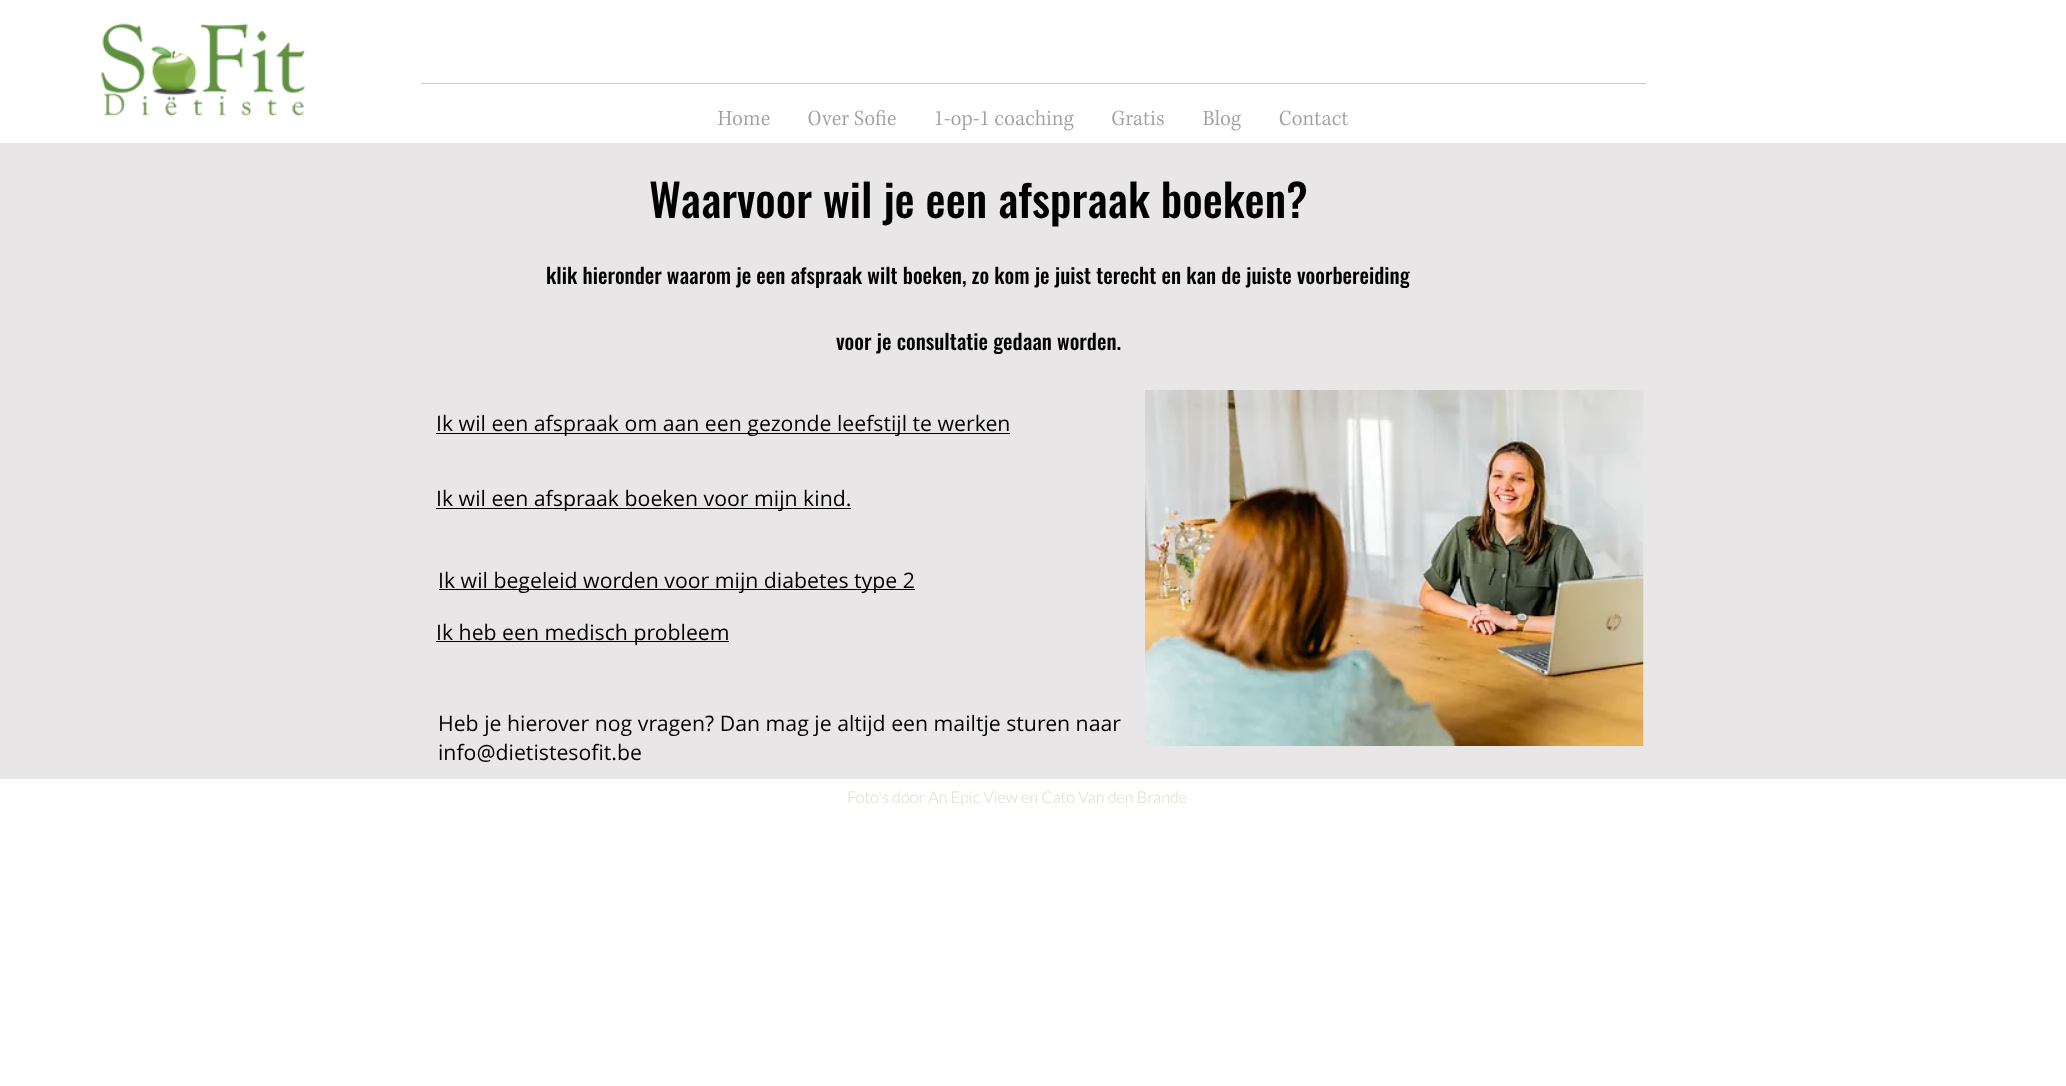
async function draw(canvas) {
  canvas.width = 2066
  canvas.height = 1086
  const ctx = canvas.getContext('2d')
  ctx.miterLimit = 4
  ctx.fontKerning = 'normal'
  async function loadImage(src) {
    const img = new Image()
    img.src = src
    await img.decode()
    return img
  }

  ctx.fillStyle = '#fff'
  ctx.fillRect(0, 0, 2066, 1086)
  ctx.drawImage(await loadImage('image0.png'), 101, 23, 205, 94)
  ctx.fillStyle = '#cacaca'
  ctx.fillRect(421, 83, 1225, 1)
  ctx.drawImage(await loadImage('image1.png'), 718, 110, 52, 16)
  ctx.drawImage(await loadImage('image2.png'), 808, 109, 88, 17)
  ctx.drawImage(await loadImage('image3.png'), 935, 110, 139, 21)
  ctx.drawImage(await loadImage('image4.png'), 1112, 110, 52, 16)
  ctx.drawImage(await loadImage('image5.png'), 1203, 110, 38, 21)
  ctx.drawImage(await loadImage('image6.png'), 1279, 110, 70, 16)
  ctx.fillStyle = '#e8e6e6'
  ctx.fillRect(0, 143, 2066, 636)
  ctx.font = '500 45px Oswald'
  ctx.fillStyle = '#000'
  ctx.fillText('Waarvoor wil je een afspraak boeken?', 649, 218)
  ctx.font = '500 21.25px Oswald'
  ctx.fillText('klik hieronder waarom je een afspraak wilt boeken, zo kom je juist terecht en kan de juiste voorbereiding', 546, 284)
  ctx.fillText('voor je consultatie gedaan worden.', 836, 350)
  ctx.fillRect(436, 433, 574, 1)
  ctx.font = '21.25px Open Sans'
  ctx.fillText('Ik wil een afspraak om aan een gezonde leefstijl te werken', 436, 431)
  ctx.drawImage(await loadImage('image7.png'), 1145, 390, 499, 356)
  ctx.fillRect(436, 508, 415, 1)
  ctx.fillText('Ik wil een afspraak boeken voor mijn kind.', 436, 506)
  ctx.fillRect(439, 589, 476, 1)
  ctx.fillText('Ik wil begeleid worden voor mijn diabetes type 2', 438, 588)
  ctx.fillText('Heb je hierover nog vragen? Dan mag je altijd een mailtje sturen naar', 438, 731)
  ctx.fillText('info@dietistesofit.be', 438, 760)
  ctx.fillRect(436, 641, 293, 1)
  ctx.fillText('Ik heb een medisch probleem', 436, 640)
  ctx.font = '300 16.25px Lato'
  ctx.fillStyle = '#dfd8c3'
  ctx.fillText('Foto\'s door An Epic View en Cato Van den Brande', 847, 803)
}

draw(document.querySelector('canvas'))
